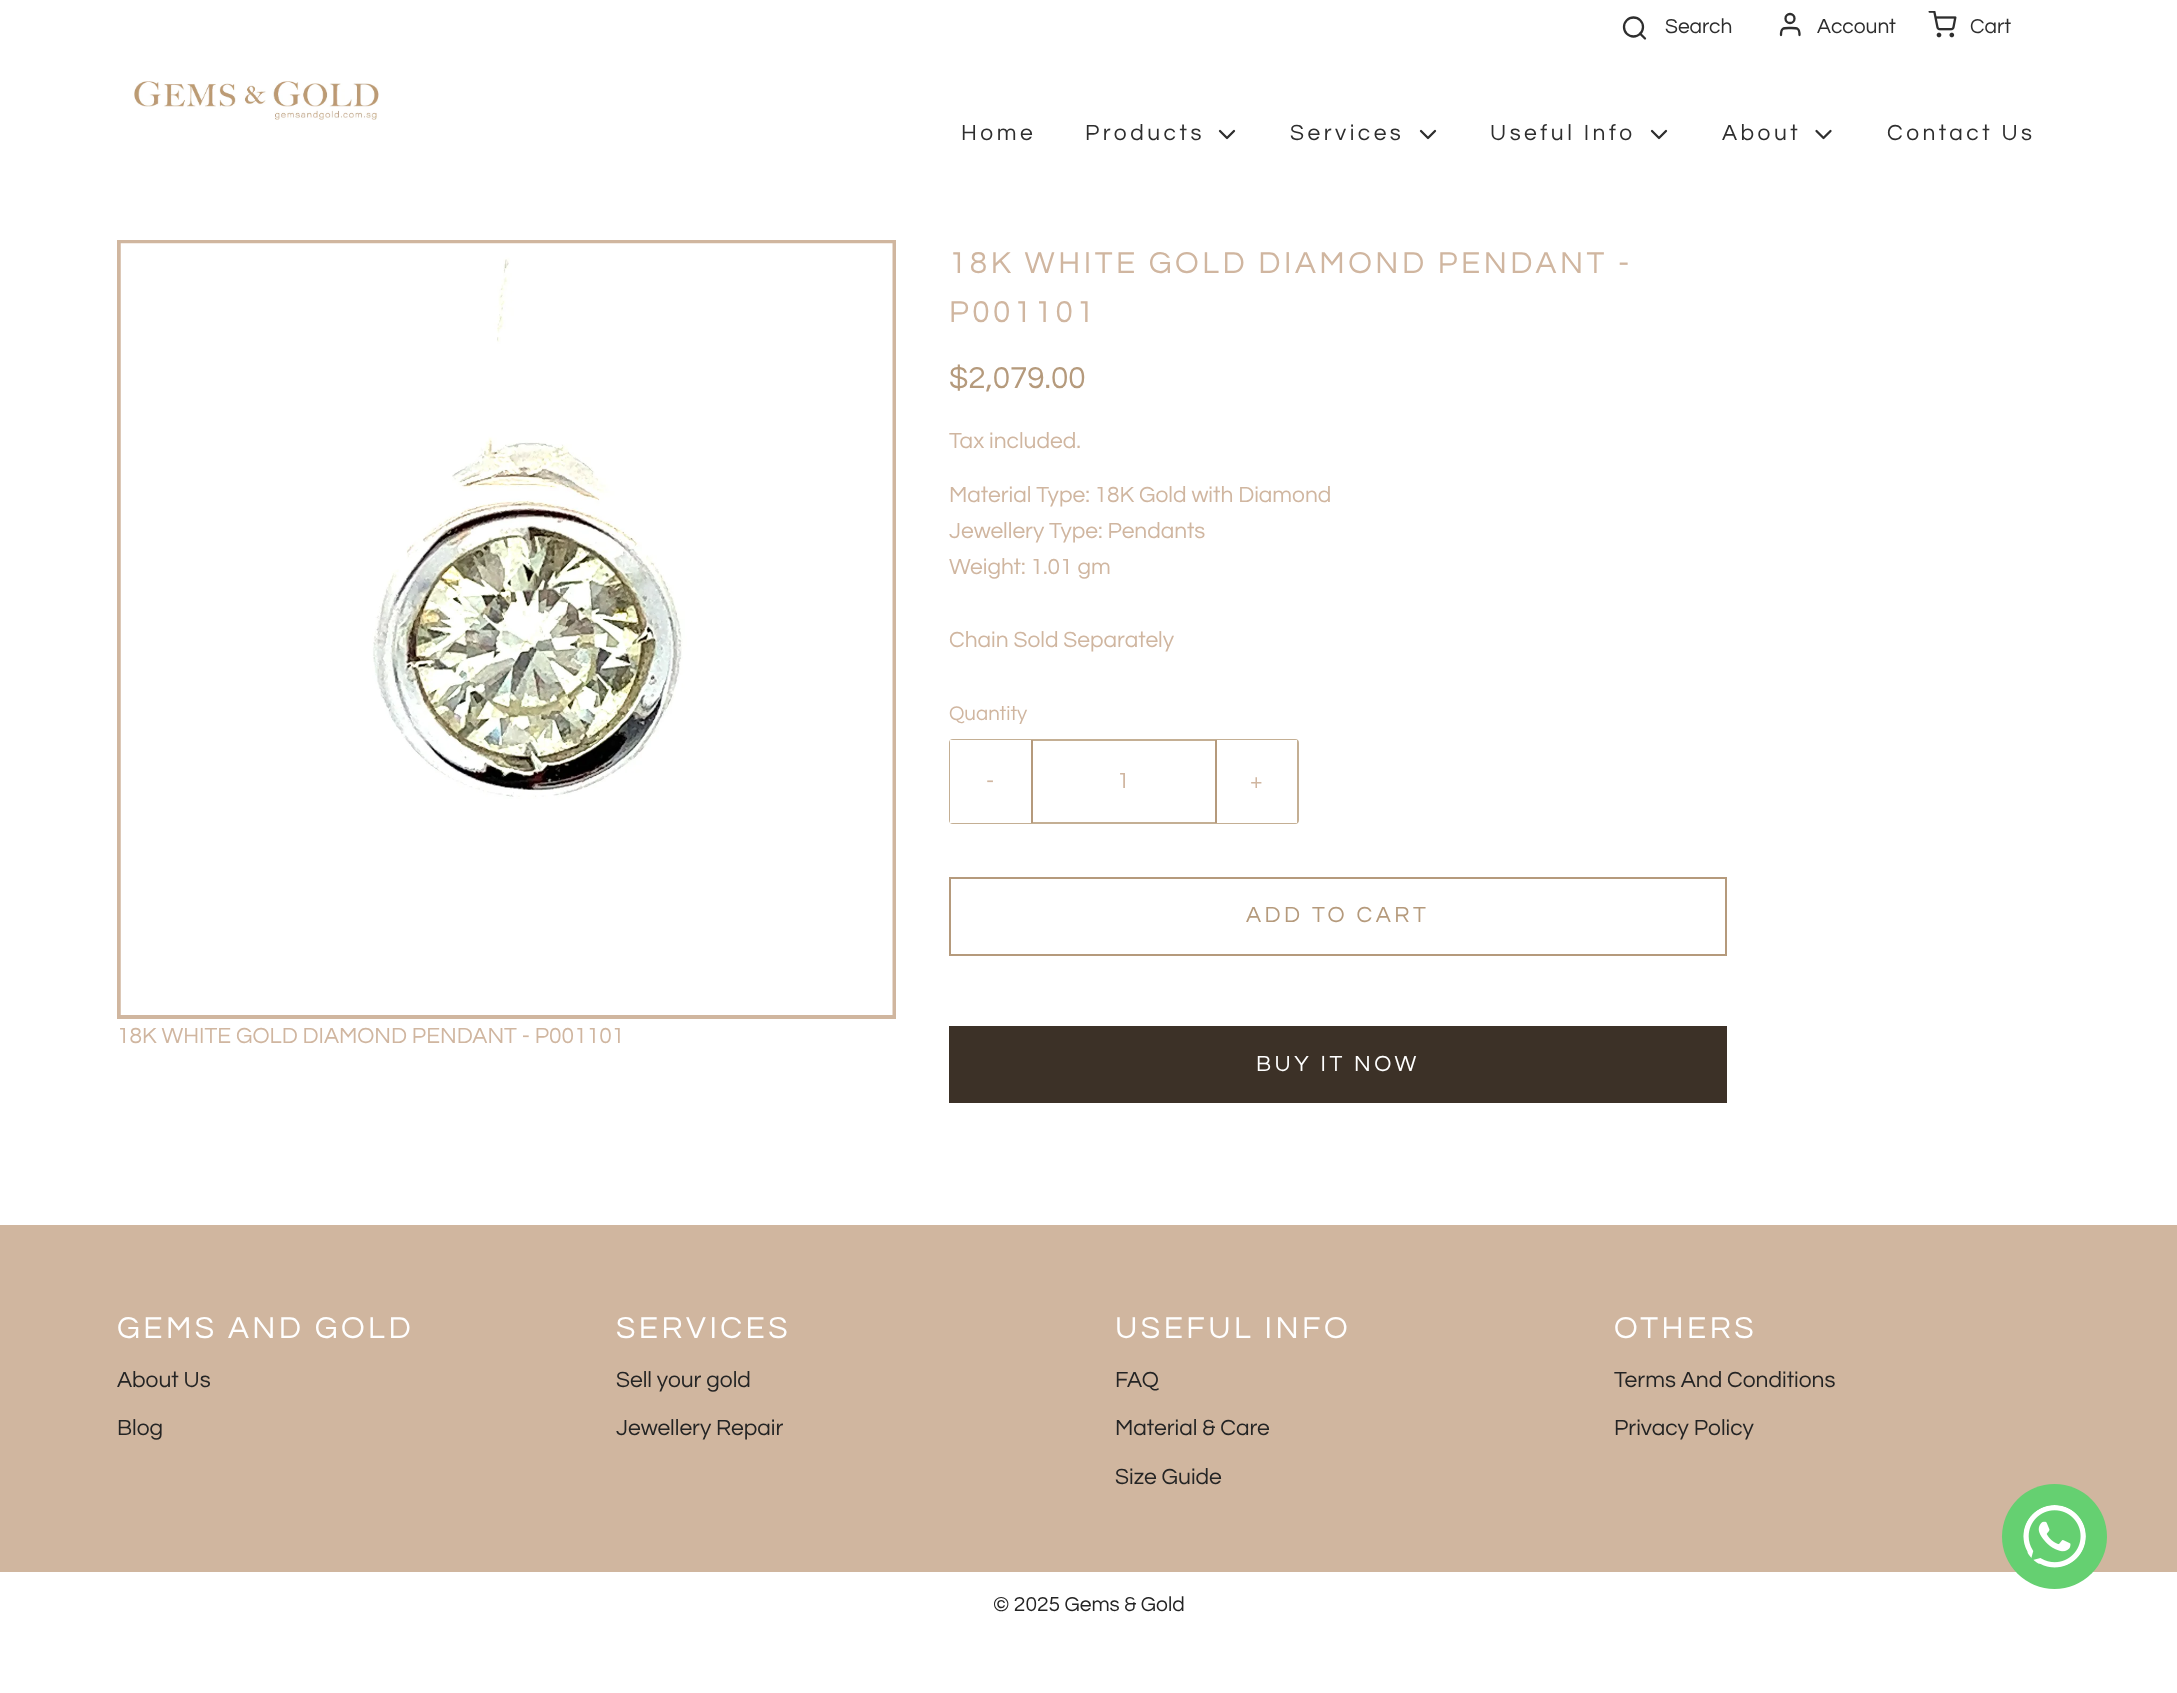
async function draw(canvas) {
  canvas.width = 2177
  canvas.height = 1693
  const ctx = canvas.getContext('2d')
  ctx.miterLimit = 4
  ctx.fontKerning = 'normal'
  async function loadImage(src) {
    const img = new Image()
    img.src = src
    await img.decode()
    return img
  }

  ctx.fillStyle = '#fff'
  ctx.fillRect(0, 0, 2177, 1693)
  ctx.beginPath()
  ctx.arc(1633.5, 27, 9.5, 0, 2 * Math.PI)
  ctx.strokeStyle = '#2e2e2e'
  ctx.lineWidth = 2.3
  ctx.stroke()
  ctx.font = '21px Questrial'
  ctx.fillStyle = '#2e2e2e'
  ctx.fillText('Search', 1665, 33)
  ctx.beginPath()
  ctx.moveTo(1645, 38.5)
  ctx.lineTo(1640, 33.5)
  ctx.lineCap = 'round'
  ctx.lineJoin = 'round'
  ctx.stroke()
  ctx.beginPath()
  ctx.moveTo(1799.5, 35)
  ctx.bezierCurveTo(1799.5, 27.5, 1797, 28, 1790, 28)
  ctx.bezierCurveTo(1783.5, 28, 1781, 27.5, 1781, 35)
  ctx.stroke()
  ctx.beginPath()
  ctx.arc(1790, 18.5, 4.5, 0, 2 * Math.PI)
  ctx.stroke()
  ctx.fillText('Account', 1817, 33)
  ctx.drawImage(await loadImage('image0.png'), 1928, 11, 29, 27)
  ctx.fillText('Cart', 1970, 33)
  ctx.drawImage(await loadImage('image1.png'), 134, 81, 245, 39)
  ctx.letterSpacing = '3.5px'
  ctx.font = '22.75px Questrial'
  ctx.fillText('Home', 961, 140)
  ctx.fillText('Products', 1085, 140)
  ctx.beginPath()
  ctx.moveTo(1220, 131)
  ctx.lineTo(1227, 138)
  ctx.lineTo(1234, 131)
  ctx.stroke()
  ctx.fillText('Services', 1290, 140)
  ctx.beginPath()
  ctx.moveTo(1421, 131)
  ctx.lineTo(1428, 138)
  ctx.lineTo(1435, 131)
  ctx.stroke()
  ctx.fillText('Useful Info', 1490, 140)
  ctx.beginPath()
  ctx.moveTo(1652, 131)
  ctx.lineTo(1659, 138)
  ctx.lineTo(1666, 131)
  ctx.stroke()
  ctx.fillText('About', 1722, 140)
  ctx.beginPath()
  ctx.moveTo(1816.5, 131)
  ctx.lineTo(1823.5, 138)
  ctx.lineTo(1830.5, 131)
  ctx.stroke()
  ctx.fillText('Contact Us', 1887, 140)
  ctx.strokeStyle = '#d0b69f'
  ctx.lineWidth = 4
  ctx.lineJoin = 'miter'
  ctx.strokeRect(119, 242, 775, 775)
  ctx.drawImage(await loadImage('image2.png'), 120, 243, 773, 772)
  ctx.letterSpacing = '0px'
  ctx.fillStyle = '#d0b6a0'
  ctx.fillText('18K WHITE GOLD DIAMOND PENDANT - P001101', 117, 1043)
  ctx.letterSpacing = '3.5px'
  ctx.font = '31.5px Questrial'
  ctx.fillText('18K WHITE GOLD DIAMOND PENDANT -', 949, 273)
  ctx.fillText('P001101', 949, 322)
  ctx.letterSpacing = '0px'
  ctx.fillStyle = '#b59a7c'
  ctx.fillText('$2,079.00', 949, 388)
  ctx.font = '22.75px Questrial'
  ctx.fillStyle = '#d0b6a0'
  ctx.fillText('Tax included.', 949, 448)
  ctx.fillText('Material Type: 18K Gold with Diamond', 949, 502)
  ctx.fillText('Jewellery Type: Pendants', 949, 538)
  ctx.fillText('Weight: 1.01 gm', 949, 574)
  ctx.fillText('Chain Sold Separately', 949, 647)
  ctx.font = '20.5px Questrial'
  ctx.fillText('Quantity', 949, 720)
  ctx.beginPath()
  ctx.roundRect(950, 740, 348, 83, 3)
  ctx.strokeStyle = '#c4af94'
  ctx.lineWidth = 2
  ctx.stroke()
  ctx.fillStyle = '#fff'
  ctx.fillRect(950, 740, 81, 83)
  ctx.fillStyle = '#b59a7c'
  ctx.fillRect(1031, 740, 2, 83)
  ctx.font = '22.75px Questrial'
  ctx.fillStyle = '#d0b6a0'
  ctx.fillText('-', 986, 788)
  ctx.fillText('1', 1117, 788)
  ctx.fillStyle = '#fff'
  ctx.fillRect(1217, 740, 80, 83)
  ctx.fillStyle = '#b59a7c'
  ctx.fillRect(1215, 740, 2, 83)
  ctx.fillStyle = '#d0b6a0'
  ctx.fillText('+', 1250, 788)
  ctx.strokeStyle = '#b59a7c'
  ctx.strokeRect(950, 878, 776, 77)
  ctx.letterSpacing = '3.5px'
  ctx.fillStyle = '#b59a7c'
  ctx.fillText('ADD TO CART', 1246, 922)
  ctx.fillStyle = '#3c3127'
  ctx.fillRect(949, 1026, 778, 77)
  ctx.fillStyle = '#fff'
  ctx.fillText('BUY IT NOW', 1256, 1071)
  ctx.fillStyle = '#d0b69f'
  ctx.fillRect(0, 1225, 2177, 347)
  ctx.font = '31.5px Questrial'
  ctx.fillStyle = '#fff'
  ctx.fillText('GEMS AND GOLD', 117, 1338)
  ctx.letterSpacing = '0px'
  ctx.font = '22.75px Questrial'
  ctx.fillStyle = '#242424'
  ctx.fillText('About Us', 117, 1387)
  ctx.fillText('Blog', 117, 1435)
  ctx.letterSpacing = '3.5px'
  ctx.font = '31.5px Questrial'
  ctx.fillStyle = '#fff'
  ctx.fillText('SERVICES', 616, 1338)
  ctx.letterSpacing = '0px'
  ctx.font = '22.75px Questrial'
  ctx.fillStyle = '#242424'
  ctx.fillText('Sell your gold', 616, 1387)
  ctx.fillText('Jewellery Repair', 616, 1435)
  ctx.letterSpacing = '3.5px'
  ctx.font = '31.5px Questrial'
  ctx.fillStyle = '#fff'
  ctx.fillText('USEFUL INFO', 1115, 1338)
  ctx.letterSpacing = '0px'
  ctx.font = '22.75px Questrial'
  ctx.fillStyle = '#242424'
  ctx.fillText('FAQ', 1115, 1387)
  ctx.fillText('Material & Care', 1115, 1435)
  ctx.fillText('Size Guide', 1115, 1484)
  ctx.letterSpacing = '3.5px'
  ctx.font = '31.5px Questrial'
  ctx.fillStyle = '#fff'
  ctx.fillText('OTHERS', 1614, 1338)
  ctx.letterSpacing = '0px'
  ctx.font = '22.75px Questrial'
  ctx.fillStyle = '#242424'
  ctx.fillText('Terms And Conditions', 1614, 1387)
  ctx.fillText('Privacy Policy', 1614, 1435)
  ctx.fillStyle = '#65d071'
  ctx.beginPath()
  ctx.arc(2054.5, 1536.5, 52.5, 0, 2 * Math.PI)
  ctx.fill()
  ctx.drawImage(await loadImage('image3.png'), 2023, 1505, 63, 63)
  ctx.font = '21px Questrial'
  ctx.fillStyle = '#242424'
  ctx.fillText('© 2025 Gems & Gold', 993, 1611)
}

draw(document.querySelector('canvas'))
